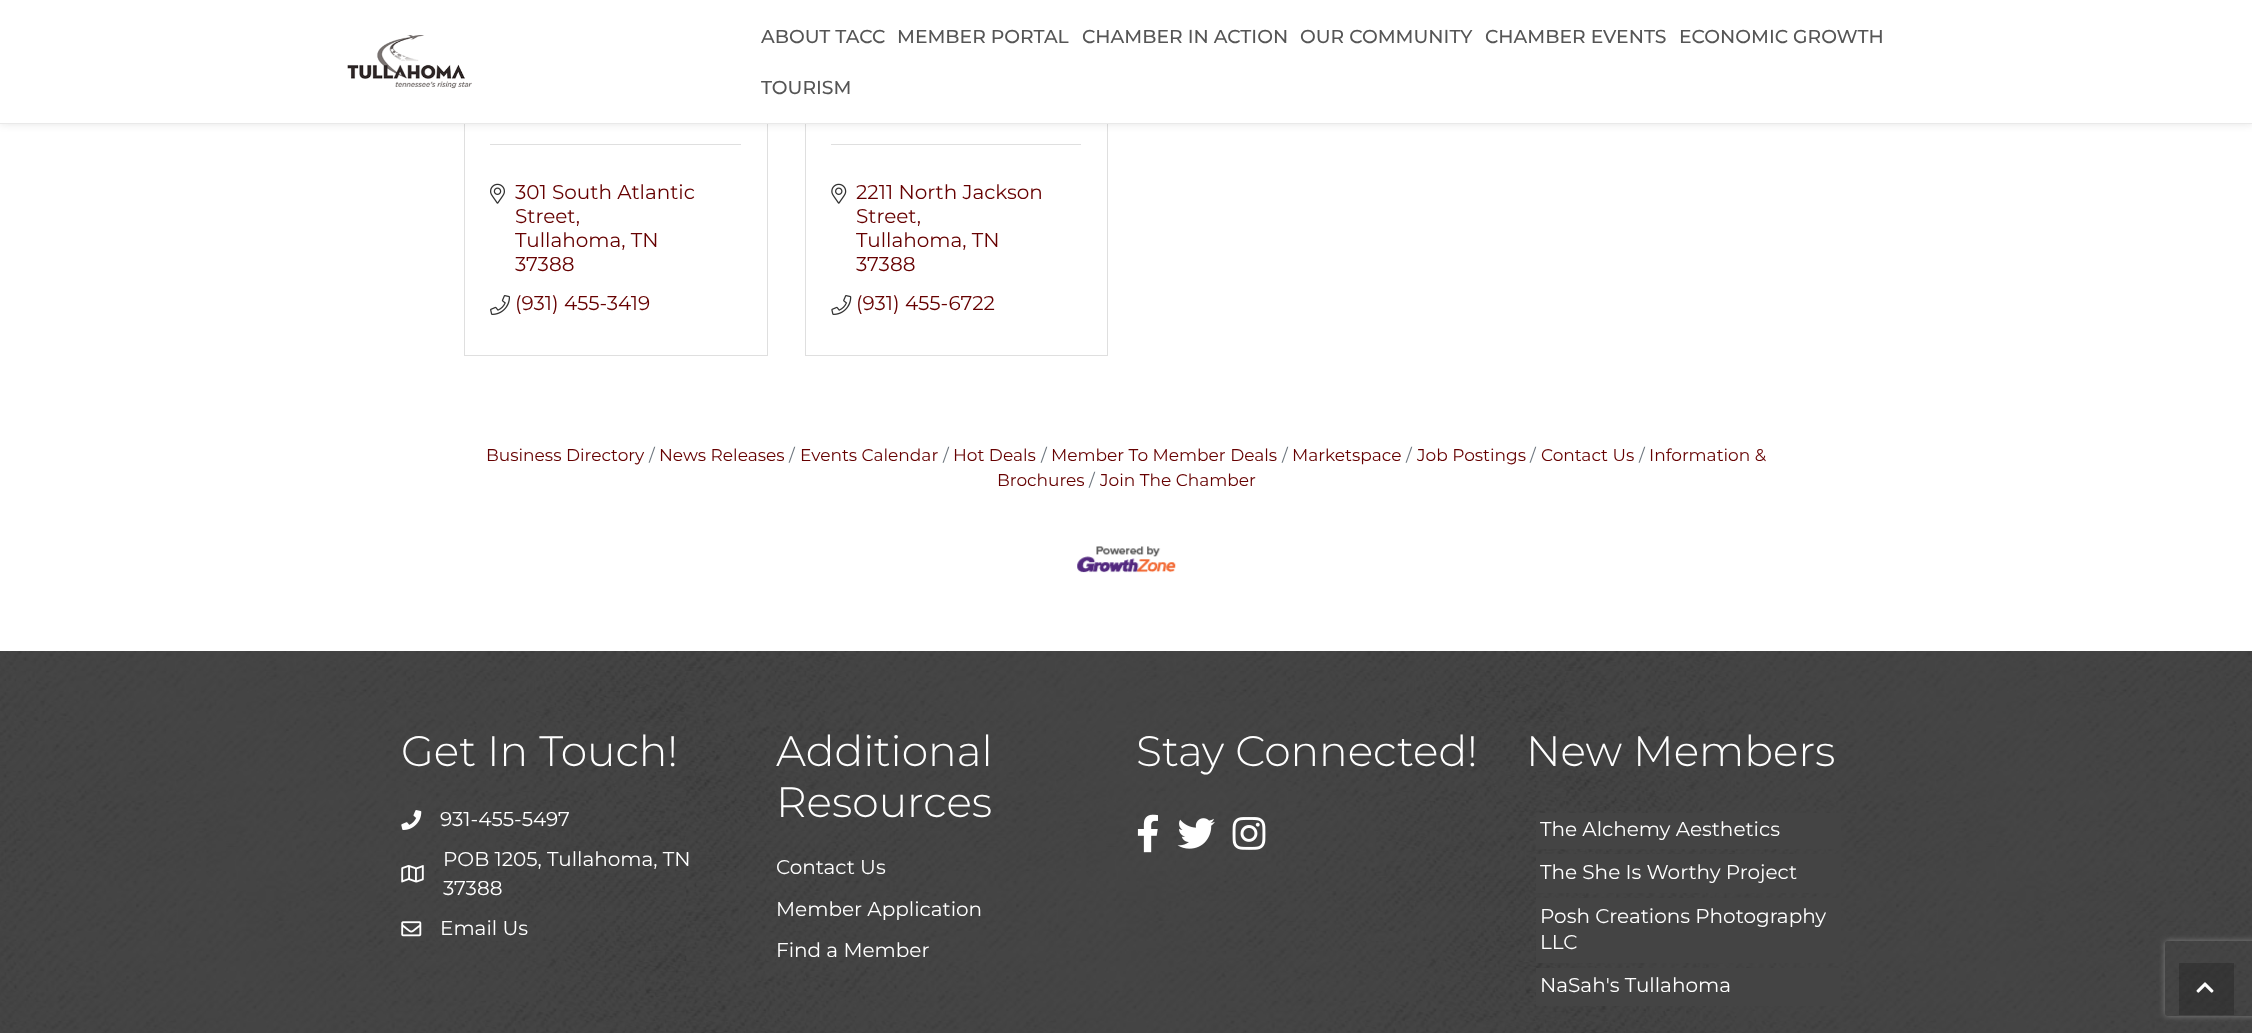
async function draw(canvas) {
  canvas.width = 2252
  canvas.height = 1033
  const ctx = canvas.getContext('2d')
  ctx.miterLimit = 4
  ctx.fontKerning = 'normal'
  async function loadImage(src) {
    const img = new Image()
    img.src = src
    await img.decode()
    return img
  }

  ctx.fillStyle = '#fff'
  ctx.fillRect(0, 0, 2252, 1033)
  ctx.strokeStyle = '#dfdfdf'
  ctx.strokeRect(464.5, -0.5, 303, 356)
  ctx.strokeRect(805.5, -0.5, 302, 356)
  ctx.fillStyle = '#0000001a'
  ctx.filter = 'blur(4.5px)'
  ctx.beginPath()
  ctx.rect(0, 0, 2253, 124)
  ctx.fill()
  ctx.filter = 'none'
  ctx.fillStyle = '#fff'
  ctx.fillRect(0, 0, 2252, 123)
  ctx.fillStyle = '#e9e9e9'
  ctx.fillRect(0, 123, 2252, 1)
  ctx.drawImage(await loadImage('image0.png'), 347, 35, 125, 54)
  ctx.font = '500 18.75px Montserrat'
  ctx.fillStyle = '#555'
  ctx.fillText('ABOUT TACC', 761, 43)
  ctx.fillText('MEMBER PORTAL', 897, 43)
  ctx.fillText('CHAMBER IN ACTION', 1082, 43)
  ctx.fillText('OUR COMMUNITY', 1300, 43)
  ctx.fillText('CHAMBER EVENTS', 1485, 43)
  ctx.fillText('ECONOMIC GROWTH', 1679, 43)
  ctx.fillText('TOURISM', 761, 94)
  ctx.fillStyle = '#dfdfdf'
  ctx.fillRect(490, 144, 251, 1)
  ctx.drawImage(await loadImage('image1.png'), 490, 183, 15, 21)
  ctx.font = '20px Montserrat'
  ctx.fillStyle = '#600'
  ctx.fillText('301 South Atlantic', 515, 199)
  ctx.fillText('Street,', 515, 223)
  ctx.fillText('Tullahoma, TN', 515, 247)
  ctx.fillText('37388', 515, 271)
  ctx.drawImage(await loadImage('image2.png'), 490, 295, 20, 20)
  ctx.fillText('(931) 455-3419', 515, 310)
  ctx.fillStyle = '#dfdfdf'
  ctx.fillRect(831, 144, 250, 1)
  ctx.drawImage(await loadImage('image3.png'), 831, 183, 16, 21)
  ctx.fillStyle = '#600'
  ctx.fillText('2211 North Jackson', 856, 199)
  ctx.fillText('Street,', 856, 223)
  ctx.fillText('Tullahoma, TN', 856, 247)
  ctx.fillText('37388', 856, 271)
  ctx.drawImage(await loadImage('image4.png'), 831, 295, 21, 20)
  ctx.fillText('(931) 455-6722', 856, 310)
  ctx.font = '17px Montserrat'
  ctx.fillStyle = '#6c757d'
  ctx.fillText('/', 649, 461)
  ctx.fillStyle = '#600'
  ctx.fillText('News Releases', 659, 461)
  ctx.fillStyle = '#6c757d'
  ctx.fillText('/', 789, 461)
  ctx.fillStyle = '#600'
  ctx.fillText('Events Calendar', 800, 461)
  ctx.fillStyle = '#6c757d'
  ctx.fillText('/', 943, 461)
  ctx.fillStyle = '#600'
  ctx.fillText('Hot Deals', 953, 461)
  ctx.fillStyle = '#6c757d'
  ctx.fillText('/', 1639, 461)
  ctx.fillStyle = '#600'
  ctx.fillText('Information &', 1649, 461)
  ctx.fillText('Brochures', 997, 486)
  ctx.fillText('Business Directory', 486, 461)
  ctx.fillStyle = '#6c757d'
  ctx.fillText('/', 1041, 461)
  ctx.fillStyle = '#600'
  ctx.fillText('Member To Member Deals', 1051, 461)
  ctx.fillStyle = '#6c757d'
  ctx.fillText('/', 1282, 461)
  ctx.fillStyle = '#600'
  ctx.fillText('Marketspace', 1292, 461)
  ctx.fillStyle = '#6c757d'
  ctx.fillText('/', 1406, 461)
  ctx.fillStyle = '#600'
  ctx.fillText('Job Postings', 1417, 461)
  ctx.fillStyle = '#6c757d'
  ctx.fillText('/', 1530, 461)
  ctx.fillStyle = '#600'
  ctx.fillText('Contact Us', 1541, 461)
  ctx.fillStyle = '#6c757d'
  ctx.fillText('/', 1089, 486)
  ctx.fillStyle = '#600'
  ctx.fillText('Join The Chamber', 1100, 486)
  ctx.drawImage(await loadImage('image5.png'), 1077, 546, 99, 27)
  ctx.drawImage(await loadImage('image6.png'), 0, 651, 2252, 382)
  ctx.font = '300 42.5px Montserrat'
  ctx.fillStyle = '#fff'
  ctx.fillText('Get In Touch!', 401, 766)
  ctx.drawImage(await loadImage('image7.png'), 401, 810, 21, 20)
  ctx.font = '20px Montserrat'
  ctx.fillText('931-455-5497', 440, 826)
  ctx.drawImage(await loadImage('image8.png'), 401, 865, 23, 18)
  ctx.fillText('POB 1205, Tullahoma, TN', 443, 866)
  ctx.fillText('37388', 443, 895)
  ctx.drawImage(await loadImage('image9.png'), 401, 921, 21, 16)
  ctx.fillText('Email Us', 440, 935)
  ctx.font = '300 42.5px Montserrat'
  ctx.fillText('Additional', 776, 766)
  ctx.fillText('Resources', 776, 817)
  ctx.font = '20px Montserrat'
  ctx.fillText('Contact Us', 776, 874)
  ctx.fillText('Member Application', 776, 916)
  ctx.fillText('Find a Member', 776, 957)
  ctx.font = '300 42.5px Montserrat'
  ctx.fillText('Stay Connected!', 1136, 766)
  ctx.drawImage(await loadImage('image10.png'), 1137, 814, 21, 39)
  ctx.drawImage(await loadImage('image11.png'), 1177, 818, 38, 31)
  ctx.drawImage(await loadImage('image12.png'), 1232, 817, 34, 33)
  ctx.fillText('New Members', 1526, 766)
  ctx.fillStyle = '#444'
  ctx.fillRect(1536, 813, 305, 36)
  ctx.font = '20px Montserrat'
  ctx.fillStyle = '#fff'
  ctx.fillText('The Alchemy Aesthetics', 1540, 836)
  ctx.fillStyle = '#444'
  ctx.fillRect(1536, 854, 305, 39)
  ctx.fillStyle = '#fff'
  ctx.fillText('The She Is Worthy Project', 1540, 879)
  ctx.fillStyle = '#444'
  ctx.fillRect(1536, 898, 305, 65)
  ctx.fillStyle = '#fff'
  ctx.fillText('Posh Creations Photography', 1540, 923)
  ctx.fillText('LLC', 1540, 949)
  ctx.fillStyle = '#444'
  ctx.fillRect(1536, 968, 305, 38)
  ctx.fillStyle = '#fff'
  ctx.fillText('NaSah\'s Tullahoma', 1540, 992)
  ctx.save()
  ctx.beginPath()
  ctx.moveTo(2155, 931)
  ctx.lineTo(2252, 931)
  ctx.lineTo(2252, 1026)
  ctx.lineTo(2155, 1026)
  ctx.closePath()
  ctx.moveTo(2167.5, 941)
  ctx.lineTo(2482.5, 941)
  ctx.bezierCurveTo(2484, 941, 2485, 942, 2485, 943.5)
  ctx.lineTo(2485, 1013.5)
  ctx.bezierCurveTo(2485, 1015, 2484, 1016, 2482.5, 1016)
  ctx.lineTo(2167.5, 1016)
  ctx.bezierCurveTo(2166, 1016, 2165, 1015, 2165, 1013.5)
  ctx.lineTo(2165, 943.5)
  ctx.bezierCurveTo(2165, 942, 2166, 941, 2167.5, 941)
  ctx.closePath()
  ctx.clip('evenodd')
  ctx.fillStyle = '#808080'
  ctx.filter = 'blur(3px)'
  ctx.beginPath()
  ctx.roundRect(2165, 941, 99, 75, 2.5)
  ctx.fill()
  ctx.filter = 'none'
  ctx.restore()
  ctx.fillStyle = '#00000033'
  ctx.fillRect(2179, 963, 55, 52)
  ctx.drawImage(await loadImage('image13.png'), 2196, 982, 18, 11)
}

draw(document.querySelector('canvas'))
